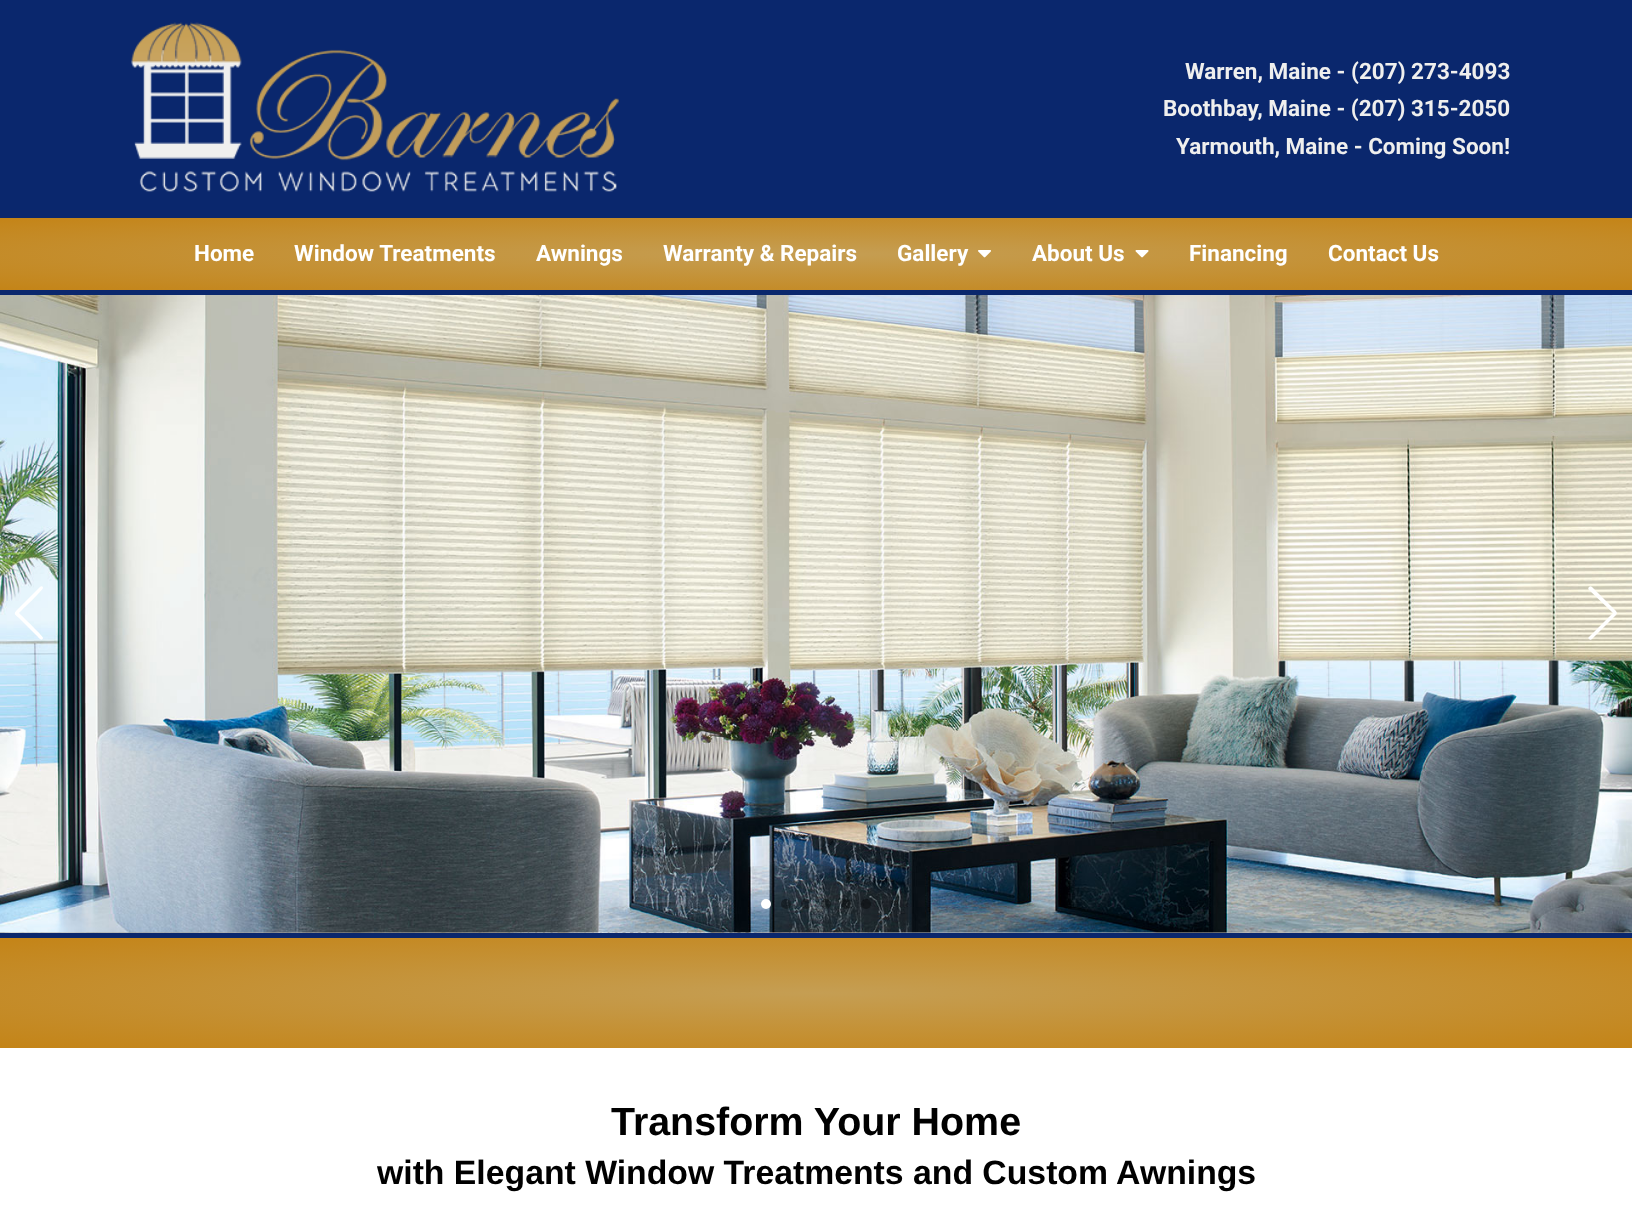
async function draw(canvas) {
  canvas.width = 1632
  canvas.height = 1222
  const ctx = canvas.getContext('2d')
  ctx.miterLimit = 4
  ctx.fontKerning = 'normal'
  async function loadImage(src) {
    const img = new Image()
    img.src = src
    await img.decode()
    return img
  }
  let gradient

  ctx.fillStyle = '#fff'
  ctx.fillRect(0, 0, 1632, 1222)
  ctx.fillStyle = '#0a276d'
  ctx.fillRect(0, 0, 1632, 218)
  ctx.drawImage(await loadImage('image0.png'), 131, 22, 488, 170)
  ctx.font = 'bold 22.5px Roboto'
  ctx.fillStyle = '#efefee'
  ctx.fillText('Warren, Maine - (207) 273-4093', 1185, 79)
  ctx.fillText('Boothbay, Maine - (207) 315-2050', 1163, 116)
  ctx.fillText('Yarmouth, Maine - Coming Soon!', 1176, 154)
  gradient = ctx.createRadialGradient(816, 5747.37, 0, 816, 5747.37, 1154)
  gradient.addColorStop(0, '#c59e53')
  gradient.addColorStop(1, '#c48417')
  ctx.fillStyle = gradient
  ctx.beginPath()
  ctx.rect(0, 218, 1632, 72)
  ctx.save()
  ctx.clip()
  ctx.scale(1, 51 / 1154)
  ctx.fillRect(0, 0, 1632, 27651)
  ctx.restore()
  ctx.fillStyle = '#0a276d'
  ctx.fillRect(0, 290, 1632, 5)
  ctx.fillStyle = '#fff'
  ctx.fillText('Home', 194, 261)
  ctx.fillText('Window Treatments', 294, 261)
  ctx.fillText('Awnings', 536, 261)
  ctx.fillText('Warranty & Repairs', 663, 261)
  ctx.fillText('Gallery', 897, 261)
  ctx.drawImage(await loadImage('image1.png'), 978, 250, 13, 8)
  ctx.fillText('About Us', 1032, 261)
  ctx.drawImage(await loadImage('image2.png'), 1135, 250, 14, 8)
  ctx.fillText('Financing', 1189, 261)
  ctx.fillText('Contact Us', 1328, 261)
  ctx.drawImage(await loadImage('image4.png'), 0, 932, 1632, 1)
  ctx.drawImage(await loadImage('image3.png'), 0, 295, 1632, 638)
  ctx.beginPath()
  ctx.moveTo(40, 587)
  ctx.bezierCurveTo(41, 586, 43, 586, 43, 588)
  ctx.bezierCurveTo(43, 590, 22, 610, 19, 613)
  ctx.bezierCurveTo(22, 616, 44, 637, 43, 638)
  ctx.bezierCurveTo(42, 642, 39, 638, 36, 635)
  ctx.lineTo(20, 619)
  ctx.bezierCurveTo(13, 613, 13, 614, 20, 607)
  ctx.closePath()
  ctx.fill()
  ctx.beginPath()
  ctx.moveTo(1589, 639)
  ctx.bezierCurveTo(1588, 638, 1588, 638, 1589, 637)
  ctx.lineTo(1613, 613)
  ctx.lineTo(1589, 590)
  ctx.bezierCurveTo(1588, 589, 1588, 588, 1589, 587)
  ctx.bezierCurveTo(1590, 586, 1591, 586, 1592, 587)
  ctx.lineTo(1616, 611)
  ctx.lineTo(1617, 613)
  ctx.lineTo(1616, 615)
  ctx.lineTo(1592, 639)
  ctx.bezierCurveTo(1591, 640, 1590, 640, 1589, 639)
  ctx.closePath()
  ctx.fill()
  ctx.beginPath()
  ctx.arc(766, 904, 5, 0, 2 * Math.PI)
  ctx.fill()
  ctx.fillStyle = '#00000033'
  ctx.beginPath()
  ctx.arc(786, 904, 5, 0, 2 * Math.PI)
  ctx.fill()
  ctx.beginPath()
  ctx.arc(786, 904, 5, 0, 2 * Math.PI)
  ctx.fill()
  ctx.beginPath()
  ctx.arc(806, 904, 5, 0, 2 * Math.PI)
  ctx.fill()
  ctx.beginPath()
  ctx.arc(806, 904, 5, 0, 2 * Math.PI)
  ctx.fill()
  ctx.beginPath()
  ctx.arc(826, 904, 5, 0, 2 * Math.PI)
  ctx.fill()
  ctx.beginPath()
  ctx.arc(826, 904, 5, 0, 2 * Math.PI)
  ctx.fill()
  ctx.beginPath()
  ctx.arc(846, 904, 5, 0, 2 * Math.PI)
  ctx.fill()
  ctx.beginPath()
  ctx.arc(846, 904, 5, 0, 2 * Math.PI)
  ctx.fill()
  ctx.beginPath()
  ctx.arc(866, 904, 5, 0, 2 * Math.PI)
  ctx.fill()
  ctx.beginPath()
  ctx.arc(866, 904, 5, 0, 2 * Math.PI)
  ctx.fill()
  gradient = ctx.createRadialGradient(816, 14691.31, 0, 816, 14691.31, 1154)
  gradient.addColorStop(0, '#c59e53')
  gradient.addColorStop(1, '#c48417')
  ctx.fillStyle = gradient
  ctx.beginPath()
  ctx.rect(0, 938, 1632, 110)
  ctx.save()
  ctx.clip()
  ctx.scale(1, 78 / 1154)
  ctx.fillRect(0, 0, 1632, 18080)
  ctx.restore()
  ctx.fillStyle = '#0a276d'
  ctx.fillRect(0, 933, 1632, 5)
  ctx.font = 'bold 39.4px Liberation Sans'
  ctx.fillStyle = '#000'
  ctx.fillText('Transform Your Home', 611, 1135)
  ctx.font = 'bold 33.75px Liberation Sans'
  ctx.fillText('with Elegant Window Treatments and Custom Awnings', 377, 1184)
}

draw(document.querySelector('canvas'))
